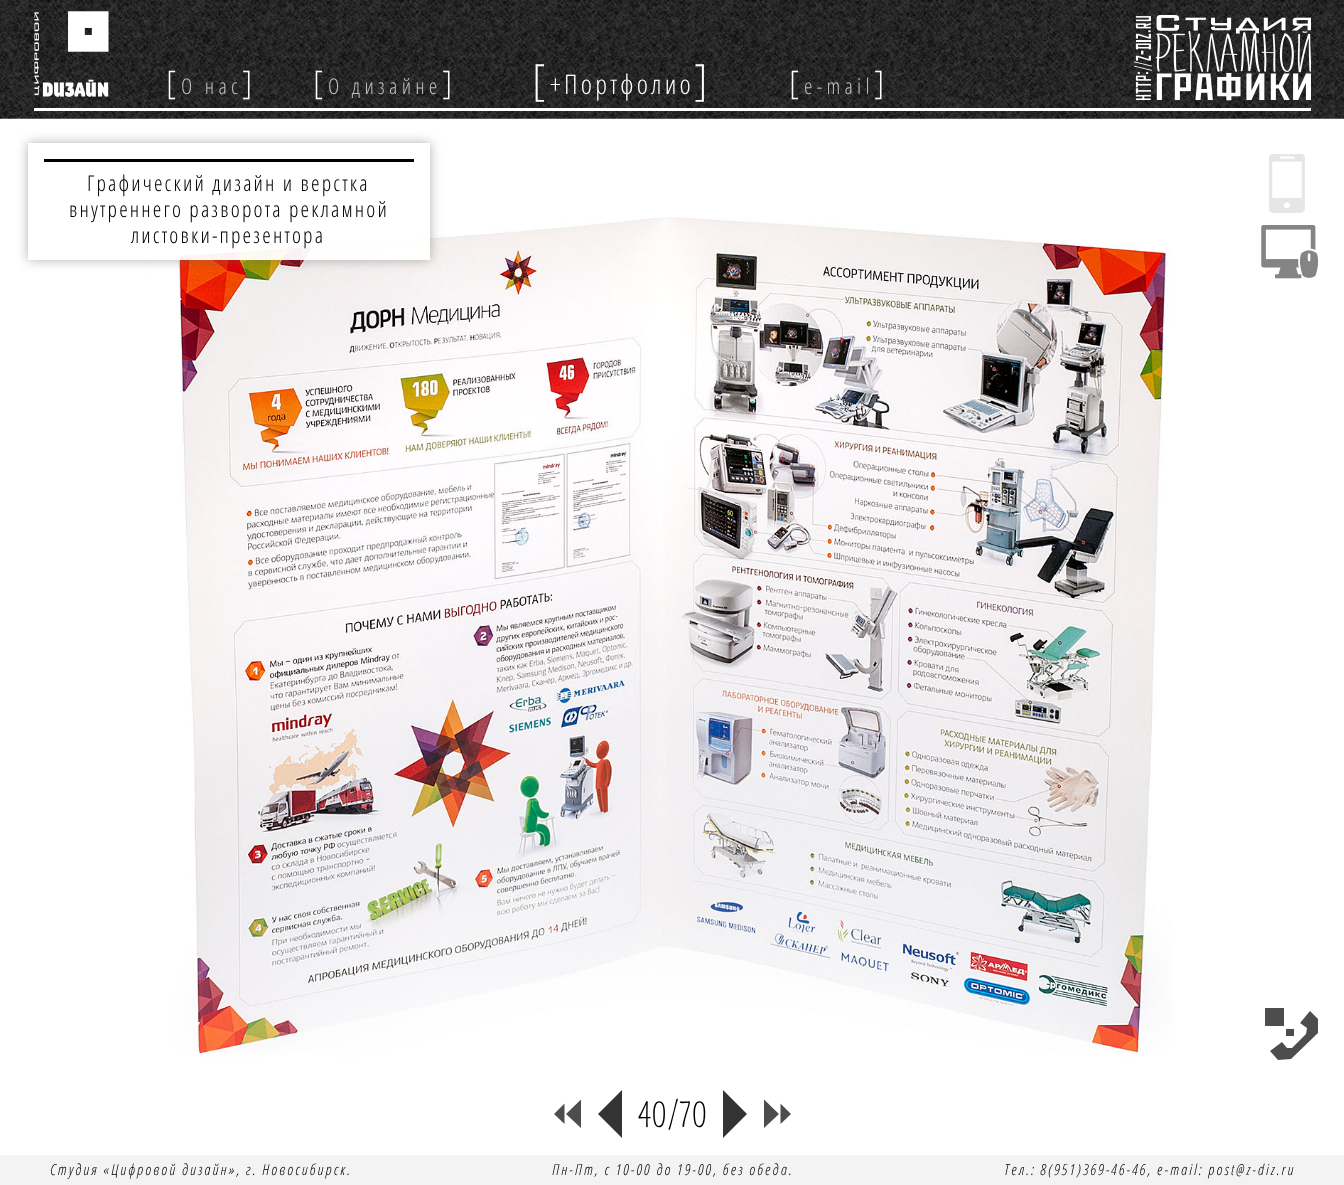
async function draw(canvas) {
  canvas.width = 1344
  canvas.height = 1185
  const ctx = canvas.getContext('2d')
  ctx.miterLimit = 4
  ctx.fontKerning = 'normal'
  async function loadImage(src) {
    const img = new Image()
    img.src = src
    await img.decode()
    return img
  }

  ctx.fillStyle = '#fff'
  ctx.fillRect(0, 0, 1344, 1185)
  ctx.drawImage(await loadImage('image0.png'), 0, 0, 1344, 119)
  ctx.fillRect(34, 108, 1277, 3)
  ctx.drawImage(await loadImage('image1.png'), 34, 11, 75, 86)
  ctx.letterSpacing = '4.25px'
  ctx.font = '300 32.5px Open Sans Condensed'
  ctx.fillText('[', 166, 94)
  ctx.font = '300 21.7px Open Sans Condensed'
  ctx.fillStyle = '#bebebe'
  ctx.fillText('О нас', 181, 94)
  ctx.font = '300 32.5px Open Sans Condensed'
  ctx.fillStyle = '#fff'
  ctx.fillText(']', 242, 94)
  ctx.fillText('[', 313, 94)
  ctx.font = '300 21.7px Open Sans Condensed'
  ctx.fillStyle = '#bebebe'
  ctx.fillText('О дизайне', 328, 94)
  ctx.font = '300 32.5px Open Sans Condensed'
  ctx.fillStyle = '#fff'
  ctx.fillText(']', 442, 94)
  ctx.font = '300 43px Open Sans Condensed'
  ctx.fillText('[', 532, 95)
  ctx.letterSpacing = '3.25px'
  ctx.font = '300 27px Open Sans Condensed'
  ctx.fillText('+Портфолио', 550, 94)
  ctx.letterSpacing = '4.25px'
  ctx.font = '300 43px Open Sans Condensed'
  ctx.fillText(']', 694, 95)
  ctx.font = '300 32.5px Open Sans Condensed'
  ctx.fillText('[', 789, 94)
  ctx.font = '300 21.7px Open Sans Condensed'
  ctx.fillStyle = '#bebebe'
  ctx.fillText('e-mail', 804, 94)
  ctx.font = '300 32.5px Open Sans Condensed'
  ctx.fillStyle = '#fff'
  ctx.fillText(']', 874, 94)
  ctx.drawImage(await loadImage('image2.png'), 1134, 15, 177, 86)
  ctx.drawImage(await loadImage('image5.png'), 151, 211, 1, 858)
  ctx.drawImage(await loadImage('image6.png'), 151, 211, 1026, 858)
  ctx.save()
  ctx.beginPath()
  ctx.moveTo(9, 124)
  ctx.lineTo(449, 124)
  ctx.lineTo(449, 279)
  ctx.lineTo(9, 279)
  ctx.closePath()
  ctx.moveTo(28, 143)
  ctx.lineTo(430, 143)
  ctx.lineTo(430, 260)
  ctx.lineTo(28, 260)
  ctx.closePath()
  ctx.clip('evenodd')
  ctx.fillStyle = '#63636380'
  ctx.filter = 'blur(6px)'
  ctx.beginPath()
  ctx.rect(28, 143, 402, 117)
  ctx.fill()
  ctx.filter = 'none'
  ctx.restore()
  ctx.fillStyle = '#fffffff2'
  ctx.fillRect(178, 235, 252, 25)
  ctx.fillStyle = '#000'
  ctx.fillRect(44, 159, 370, 3)
  ctx.letterSpacing = '2.15px'
  ctx.font = '300 21.7px Open Sans Condensed'
  ctx.fillText('Графический дизайн и верстка', 87, 191)
  ctx.fillText('внутреннего разворота рекламной', 69, 217)
  ctx.fillText('листовки-презентора', 131, 243)
  ctx.drawImage(await loadImage('image3.png'), 1269, 154, 36, 59)
  ctx.drawImage(await loadImage('image4.png'), 1261, 225, 57, 54)
  ctx.fillStyle = '#4d4d4d'
  ctx.fillRect(1265, 1008, 19, 18)
  ctx.fillRect(1286, 1029, 8, 7)
  ctx.save()
  ctx.beginPath()
  ctx.rect(1265, 1008, 53, 52)
  ctx.clip()
  ctx.beginPath()
  ctx.moveTo(1310, 1011)
  ctx.lineTo(1300, 1023)
  ctx.lineTo(1307, 1028)
  ctx.lineTo(1306, 1034)
  ctx.lineTo(1292, 1048)
  ctx.lineTo(1287, 1048)
  ctx.lineTo(1282, 1042)
  ctx.lineTo(1270, 1051)
  ctx.lineTo(1278, 1060)
  ctx.lineTo(1291, 1059)
  ctx.lineTo(1318, 1033)
  ctx.lineTo(1319, 1020)
  ctx.closePath()
  ctx.fill()
  ctx.restore()
  ctx.beginPath()
  ctx.moveTo(581, 1128)
  ctx.lineTo(566, 1114)
  ctx.lineTo(581, 1099.5)
  ctx.closePath()
  ctx.moveTo(564.5, 1124)
  ctx.lineTo(554, 1114)
  ctx.lineTo(564.5, 1103.5)
  ctx.closePath()
  ctx.fill()
  ctx.fillStyle = '#333'
  ctx.beginPath()
  ctx.moveTo(622, 1138)
  ctx.lineTo(598, 1114)
  ctx.lineTo(622, 1090)
  ctx.closePath()
  ctx.fill()
  ctx.letterSpacing = '0px'
  ctx.font = '32.5px Pompiere'
  ctx.fillStyle = '#000'
  ctx.fillText('40/70', 638, 1127)
  ctx.fillStyle = '#333'
  ctx.beginPath()
  ctx.moveTo(723, 1138)
  ctx.lineTo(747, 1114)
  ctx.lineTo(723, 1090)
  ctx.closePath()
  ctx.fill()
  ctx.fillStyle = '#4d4d4d'
  ctx.beginPath()
  ctx.moveTo(764, 1128)
  ctx.lineTo(779, 1114)
  ctx.lineTo(764, 1099.5)
  ctx.closePath()
  ctx.moveTo(780.5, 1124)
  ctx.lineTo(791, 1114)
  ctx.lineTo(780.5, 1103.5)
  ctx.closePath()
  ctx.fill()
  ctx.fillStyle = '#f3f3f3'
  ctx.fillRect(0, 1155, 1344, 30)
  ctx.letterSpacing = '2.15px'
  ctx.font = 'italic 300 15.2px Open Sans Condensed'
  ctx.fillStyle = '#000'
  ctx.fillText('Студия «Цифровой дизайн», г. Новосибирск.', 50, 1175)
  ctx.fillText('Пн-Пт, с 10-00 до 19-00, без обеда.', 552, 1175)
  ctx.fillText('Тел.: 8(951)369-46-46, e-mail: post@z-diz.ru', 1004, 1175)
}

draw(document.querySelector('canvas'))
